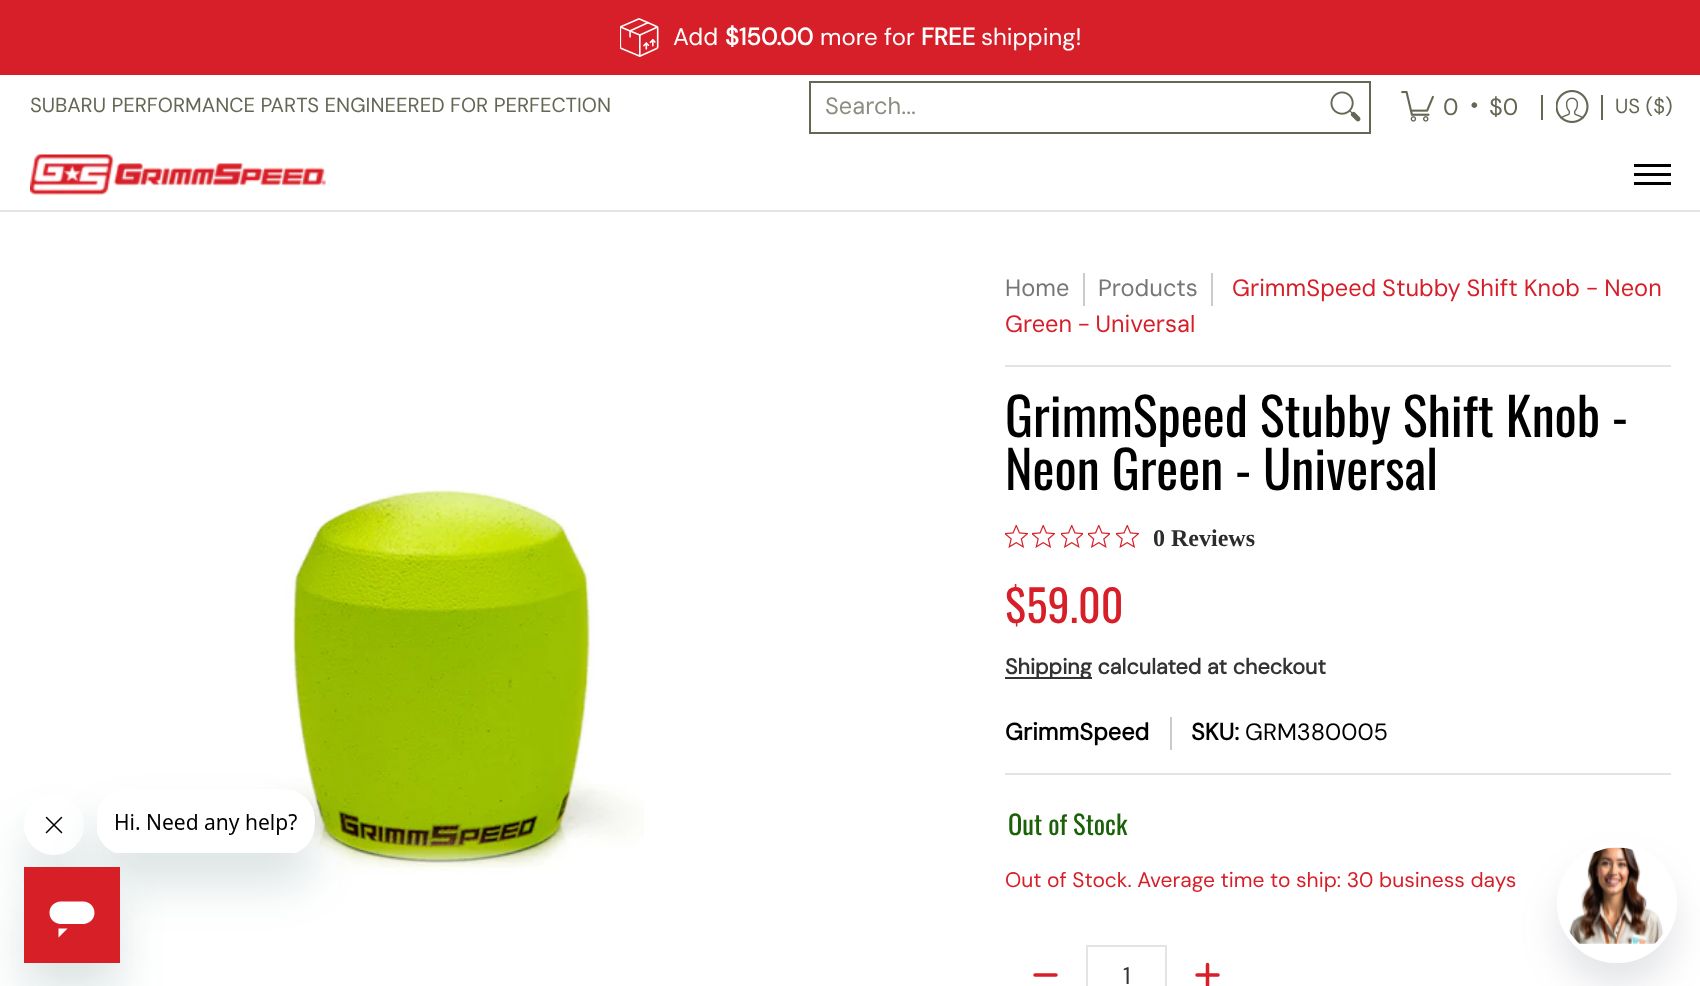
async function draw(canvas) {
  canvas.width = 1700
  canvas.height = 986
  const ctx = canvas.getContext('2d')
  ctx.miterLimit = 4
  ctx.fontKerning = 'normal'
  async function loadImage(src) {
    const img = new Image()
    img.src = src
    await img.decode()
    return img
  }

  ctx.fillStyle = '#fff'
  ctx.fillRect(0, 0, 1700, 986)
  ctx.fillStyle = '#d61f28'
  ctx.fillRect(0, 0, 1700, 75)
  ctx.drawImage(await loadImage('image0.png'), 620, 18, 39, 39)
  ctx.font = '24px DM Sans'
  ctx.fillStyle = '#fff'
  ctx.fillText('Add', 673, 45)
  ctx.font = 'bold 24px DM Sans'
  ctx.fillText('$150.00', 725, 45)
  ctx.font = '24px "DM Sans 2"'
  ctx.fillText('more for', 820, 45)
  ctx.font = 'bold 24px DM Sans'
  ctx.fillText('FREE', 921, 45)
  ctx.font = '24px "DM Sans 2"'
  ctx.fillText('shipping!', 981, 45)
  ctx.font = '20.25px DM Sans'
  ctx.fillStyle = '#665'
  ctx.fillText('SUBARU PERFORMANCE PARTS ENGINEERED FOR PERFECTION', 30, 112)
  ctx.strokeStyle = '#665'
  ctx.lineWidth = 2
  ctx.strokeRect(810, 82, 560, 51)
  ctx.font = '23.6px DM Sans'
  ctx.fillStyle = '#8c8c80'
  ctx.fillText('Search...', 825, 114)
  ctx.drawImage(await loadImage('image1.png'), 1330, 91, 31, 31)
  ctx.drawImage(await loadImage('image2.png'), 1401, 91, 33, 31)
  ctx.fillStyle = '#665'
  ctx.fillText('0', 1443, 115)
  ctx.fillText('•', 1470, 113)
  ctx.fillText('$0', 1489, 115)
  ctx.fillRect(1541, 95, 2, 25)
  ctx.drawImage(await loadImage('image3.png'), 1556, 90, 33, 33)
  ctx.fillRect(1601, 95, 2, 25)
  ctx.font = '20.25px DM Sans'
  ctx.fillText('US ($)', 1615, 113)
  ctx.fillStyle = '#e4e4e4'
  ctx.fillRect(0, 210, 1700, 2)
  ctx.drawImage(await loadImage('image4.png'), 30, 154, 296, 41)
  ctx.fillStyle = '#000'
  ctx.fillRect(1634, 164, 37, 3)
  ctx.fillRect(1634, 182, 37, 3)
  ctx.fillRect(1634, 173, 37, 3)
  ctx.save()
  ctx.beginPath()
  ctx.moveTo(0, 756)
  ctx.lineTo(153, 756)
  ctx.lineTo(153, 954)
  ctx.lineTo(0, 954)
  ctx.closePath()
  ctx.moveTo(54, 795)
  ctx.bezierCurveTo(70.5, 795, 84, 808.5, 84, 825)
  ctx.bezierCurveTo(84, 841.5, 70.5, 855, 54, 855)
  ctx.bezierCurveTo(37.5, 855, 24, 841.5, 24, 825)
  ctx.bezierCurveTo(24, 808.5, 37.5, 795, 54, 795)
  ctx.closePath()
  ctx.clip('evenodd')
  ctx.fillStyle = '#17494d26'
  ctx.filter = 'blur(22.5px)'
  ctx.beginPath()
  ctx.roundRect(24, 825, 60, 60, 30)
  ctx.fill()
  ctx.filter = 'none'
  ctx.restore()
  ctx.drawImage(await loadImage('image6.png'), 45, 816, 18, 18)
  ctx.drawImage(await loadImage('image8.png'), 258, 488, 386, 386)
  ctx.fillStyle = '#17494d26'
  ctx.filter = 'blur(22.5px)'
  ctx.beginPath()
  ctx.roundRect(96, 819, 219, 66, 30)
  ctx.fill()
  ctx.filter = 'none'
  ctx.drawImage(await loadImage('image5.png'), 97, 789, 218, 64)
  ctx.filter = 'blur(22.5px)'
  ctx.beginPath()
  ctx.rect(24, 897, 96, 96)
  ctx.fill()
  ctx.filter = 'none'
  ctx.drawImage(await loadImage('image7.png'), 24, 867, 96, 96)
  ctx.fillStyle = '#e4e4e4'
  ctx.fillRect(1005, 365, 666, 2)
  ctx.font = '23.6px DM Sans'
  ctx.fillStyle = '#767676'
  ctx.fillText('Home', 1005, 296)
  ctx.fillStyle = '#cbcbcb'
  ctx.fillRect(1083, 273, 2, 33)
  ctx.fillStyle = '#767676'
  ctx.fillText('Products', 1098, 296)
  ctx.fillStyle = '#cbcbcb'
  ctx.fillRect(1211, 273, 2, 33)
  ctx.wordSpacing = '-0.5px'
  ctx.fillStyle = '#d61f28'
  ctx.fillText('GrimmSpeed Stubby Shift Knob - Neon', 1232, 296)
  ctx.wordSpacing = '-1px'
  ctx.fillText('Green - Universal', 1005, 332)
  ctx.wordSpacing = '0px'
  ctx.font = '52.25px Oswald'
  ctx.fillStyle = '#000'
  ctx.fillText('GrimmSpeed Stubby Shift Knob -', 1005, 437)
  ctx.fillText('Neon Green - Universal', 1005, 490)
  ctx.drawImage(await loadImage('image9.png'), 1005, 525, 23, 23)
  ctx.drawImage(await loadImage('image9.png'), 1032, 525, 23, 23)
  ctx.drawImage(await loadImage('image10.png'), 1061, 525, 22, 23)
  ctx.drawImage(await loadImage('image10.png'), 1088, 525, 22, 23)
  ctx.drawImage(await loadImage('image9.png'), 1116, 525, 23, 23)
  ctx.font = 'bold 24px Liberation Serif'
  ctx.fillStyle = '#2c2c2c'
  ctx.fillText('0 Reviews', 1153, 546)
  ctx.font = '44px Oswald'
  ctx.fillStyle = '#d61f28'
  ctx.fillText('$59.00', 1005, 623)
  ctx.fillStyle = '#333'
  ctx.fillRect(1005, 677, 87, 2)
  ctx.font = 'bold 21.6px "DM Sans 2"'
  ctx.fillText('Shipping calculated at checkout', 1005, 674)
  ctx.fillStyle = '#e4e4e4'
  ctx.fillRect(1005, 773, 666, 2)
  ctx.font = 'bold 23.6px "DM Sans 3"'
  ctx.fillStyle = '#000'
  ctx.fillText('GrimmSpeed', 1005, 740)
  ctx.fillStyle = '#cbcbcb'
  ctx.fillRect(1170, 717, 2, 33)
  ctx.fillStyle = '#000'
  ctx.fillText('SKU:', 1191, 740)
  ctx.font = '23.6px "DM Sans 3"'
  ctx.fillText('GRM380005', 1245, 740)
  ctx.font = '26.5px Oswald'
  ctx.fillStyle = '#1b6109'
  ctx.fillText('Out of Stock', 1008, 835)
  ctx.font = '21px "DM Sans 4"'
  ctx.fillStyle = '#d61f28'
  ctx.fillText('Out of Stock. Average time to ship: 30 business days', 1005, 887)
  ctx.beginPath()
  ctx.moveTo(1056, 975)
  ctx.lineTo(1035, 975)
  ctx.strokeStyle = '#d61f28'
  ctx.lineWidth = 3.5
  ctx.lineCap = 'round'
  ctx.lineJoin = 'round'
  ctx.stroke()
  ctx.strokeStyle = '#e4e4e4'
  ctx.lineWidth = 2
  ctx.lineJoin = 'miter'
  ctx.strokeRect(1087, 946, 79, 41)
  ctx.font = '24px "DM Sans 2"'
  ctx.fillStyle = '#333'
  ctx.fillText('1', 1123, 984)
  ctx.beginPath()
  ctx.moveTo(1207.5, 964.5)
  ctx.lineTo(1207.5, 985.5)
  ctx.moveTo(1218, 975)
  ctx.lineTo(1197, 975)
  ctx.strokeStyle = '#d61f28'
  ctx.lineWidth = 3.5
  ctx.lineJoin = 'round'
  ctx.stroke()
  ctx.save()
  ctx.beginPath()
  ctx.moveTo(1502, 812)
  ctx.lineTo(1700, 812)
  ctx.lineTo(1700, 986)
  ctx.lineTo(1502, 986)
  ctx.closePath()
  ctx.moveTo(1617, 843)
  ctx.bezierCurveTo(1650, 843, 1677, 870, 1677, 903)
  ctx.bezierCurveTo(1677, 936, 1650, 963, 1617, 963)
  ctx.bezierCurveTo(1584, 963, 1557, 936, 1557, 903)
  ctx.bezierCurveTo(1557, 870, 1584, 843, 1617, 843)
  ctx.closePath()
  ctx.clip('evenodd')
  ctx.fillStyle = '#545f6f29'
  ctx.filter = 'blur(18px)'
  ctx.beginPath()
  ctx.roundRect(1557, 867, 120, 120, 60)
  ctx.fill()
  ctx.filter = 'none'
  ctx.restore()
  ctx.beginPath()
  ctx.arc(1617, 903, 57.5, 0, 2 * Math.PI)
  ctx.strokeStyle = '#fff'
  ctx.lineWidth = 5
  ctx.stroke()
  ctx.drawImage(await loadImage('image11.png'), 1569, 847, 95, 97)
}

draw(document.querySelector('canvas'))
